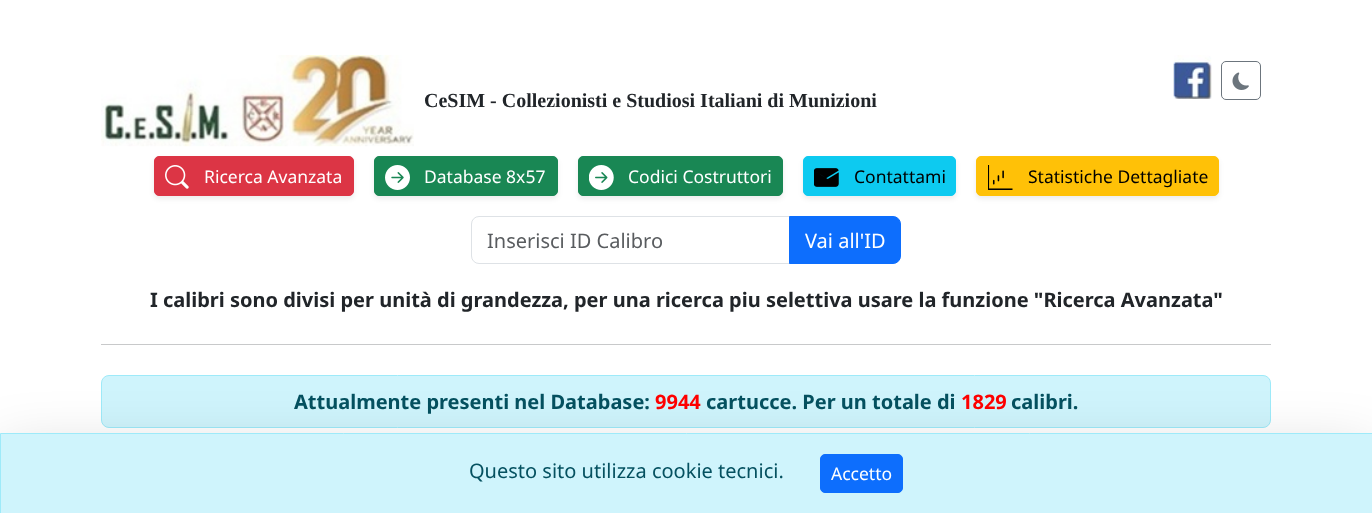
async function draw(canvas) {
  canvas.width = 1372
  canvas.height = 513
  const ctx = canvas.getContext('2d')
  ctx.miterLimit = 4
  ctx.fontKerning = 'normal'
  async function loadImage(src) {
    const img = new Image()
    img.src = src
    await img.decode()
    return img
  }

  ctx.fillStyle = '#fff'
  ctx.fillRect(0, 0, 1372, 513)
  ctx.drawImage(await loadImage('image0.png'), 101, 55, 313, 92)
  ctx.font = 'bold 20px Liberation Serif'
  ctx.fillStyle = '#212529'
  ctx.fillText('CeSIM - Collezionisti e Studiosi Italiani di Munizioni', 424, 107)
  ctx.drawImage(await loadImage('image1.png'), 1173, 55, 39, 44)
  ctx.beginPath()
  ctx.roundRect(1221.5, 61.5, 39, 38, 4.5)
  ctx.strokeStyle = '#6c757d'
  ctx.stroke()
  ctx.drawImage(await loadImage('image2.png'), 1232, 72, 17, 18)
  ctx.fillStyle = '#00000012'
  ctx.filter = 'blur(2.5px)'
  ctx.beginPath()
  ctx.roundRect(154, 159, 200, 40, 5)
  ctx.fill()
  ctx.filter = 'none'
  ctx.fillStyle = '#dc3545'
  ctx.beginPath()
  ctx.roundRect(154.5, 156.5, 199, 39, 4.5)
  ctx.fill()
  ctx.strokeStyle = '#dc3545'
  ctx.stroke()
  ctx.drawImage(await loadImage('image3.png'), 165, 165, 24, 24)
  ctx.font = '17.5px Noto Sans'
  ctx.fillStyle = '#fff'
  ctx.fillText('Ricerca Avanzata', 204, 183)
  ctx.fillStyle = '#00000012'
  ctx.filter = 'blur(2.5px)'
  ctx.beginPath()
  ctx.roundRect(374, 159, 184, 40, 5)
  ctx.fill()
  ctx.filter = 'none'
  ctx.fillStyle = '#198754'
  ctx.beginPath()
  ctx.roundRect(374.5, 156.5, 183, 39, 4.5)
  ctx.fill()
  ctx.strokeStyle = '#198754'
  ctx.stroke()
  ctx.drawImage(await loadImage('image4.png'), 385, 165, 25, 25)
  ctx.fillStyle = '#fff'
  ctx.fillText('Database 8x57', 424, 183)
  ctx.fillStyle = '#00000012'
  ctx.filter = 'blur(2.5px)'
  ctx.beginPath()
  ctx.roundRect(578, 159, 205, 40, 5)
  ctx.fill()
  ctx.filter = 'none'
  ctx.fillStyle = '#198754'
  ctx.beginPath()
  ctx.roundRect(578.5, 156.5, 204, 39, 4.5)
  ctx.fill()
  ctx.stroke()
  ctx.drawImage(await loadImage('image5.png'), 589, 165, 25, 25)
  ctx.fillStyle = '#fff'
  ctx.fillText('Codici Costruttori', 628, 183)
  ctx.fillStyle = '#00000012'
  ctx.filter = 'blur(2.5px)'
  ctx.beginPath()
  ctx.roundRect(803, 159, 153, 40, 5)
  ctx.fill()
  ctx.filter = 'none'
  ctx.fillStyle = '#0dcaf0'
  ctx.beginPath()
  ctx.roundRect(803.5, 156.5, 152, 39, 4.5)
  ctx.fill()
  ctx.strokeStyle = '#0dcaf0'
  ctx.stroke()
  ctx.drawImage(await loadImage('image6.png'), 814, 168, 25, 19)
  ctx.fillStyle = '#000'
  ctx.fillText('Contattami', 854, 183)
  ctx.fillStyle = '#00000012'
  ctx.filter = 'blur(2.5px)'
  ctx.beginPath()
  ctx.roundRect(976, 159, 243, 40, 5)
  ctx.fill()
  ctx.filter = 'none'
  ctx.fillStyle = '#ffc107'
  ctx.beginPath()
  ctx.roundRect(976.5, 156.5, 242, 39, 4.5)
  ctx.fill()
  ctx.strokeStyle = '#ffc107'
  ctx.stroke()
  ctx.drawImage(await loadImage('image7.png'), 988, 165, 25, 25)
  ctx.fillStyle = '#000'
  ctx.fillText('Statistiche Dettagliate', 1028, 183)
  ctx.beginPath()
  ctx.roundRect(471.5, 216.5, 318, 47, [7.5, 0, 0, 7.5])
  ctx.strokeStyle = '#dee2e6'
  ctx.stroke()
  ctx.font = '20px Noto Sans'
  ctx.fillStyle = '#595c5f'
  ctx.fillText('Inserisci ID Calibro', 487, 248)
  ctx.fillStyle = '#0d6efd'
  ctx.beginPath()
  ctx.roundRect(789.5, 216.5, 111, 47, [0, 7.5, 7.5, 0])
  ctx.fill()
  ctx.strokeStyle = '#0d6efd'
  ctx.stroke()
  ctx.fillStyle = '#fff'
  ctx.fillText('Vai all\'ID', 805, 248)
  ctx.font = 'bold 20px Noto Sans'
  ctx.fillStyle = '#212529'
  ctx.fillText('I calibri sono divisi per unità di grandezza, per una ricerca piu selettiva usare la funzione "Ricerca Avanzata"', 150, 307)
  ctx.fillStyle = '#c8c9ca'
  ctx.fillRect(101, 344, 1170, 1)
  ctx.fillStyle = '#cff4fc'
  ctx.beginPath()
  ctx.roundRect(101.5, 375.5, 1169, 52, 7.5)
  ctx.fill()
  ctx.strokeStyle = '#9eeaf9'
  ctx.stroke()
  ctx.fillStyle = '#055160'
  ctx.fillText('Attualmente presenti nel Database:', 294, 409)
  ctx.fillStyle = '#f00'
  ctx.fillText('9944', 655, 409)
  ctx.fillStyle = '#055160'
  ctx.fillText('cartucce. Per un totale di', 706, 409)
  ctx.fillStyle = '#f00'
  ctx.fillText('1829', 961, 409)
  ctx.fillStyle = '#055160'
  ctx.fillText('calibri.', 1011, 409)
  ctx.fillStyle = '#0000002e'
  ctx.filter = 'blur(30px)'
  ctx.beginPath()
  ctx.rect(0, 453, 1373, 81)
  ctx.fill()
  ctx.filter = 'none'
  ctx.fillStyle = '#cff4fc'
  ctx.beginPath()
  ctx.rect(0.5, 433.5, 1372, 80)
  ctx.fill()
  ctx.stroke()
  ctx.font = '20px Noto Sans'
  ctx.fillStyle = '#055160'
  ctx.fillText('Questo sito utilizza cookie tecnici.', 469, 478)
  ctx.fillStyle = '#0d6efd'
  ctx.beginPath()
  ctx.roundRect(820.5, 454.5, 82, 38, 4.5)
  ctx.fill()
  ctx.strokeStyle = '#0d6efd'
  ctx.stroke()
  ctx.font = '17.5px Noto Sans'
  ctx.fillStyle = '#fff'
  ctx.fillText('Accetto', 831, 480)
}

draw(document.querySelector('canvas'))
